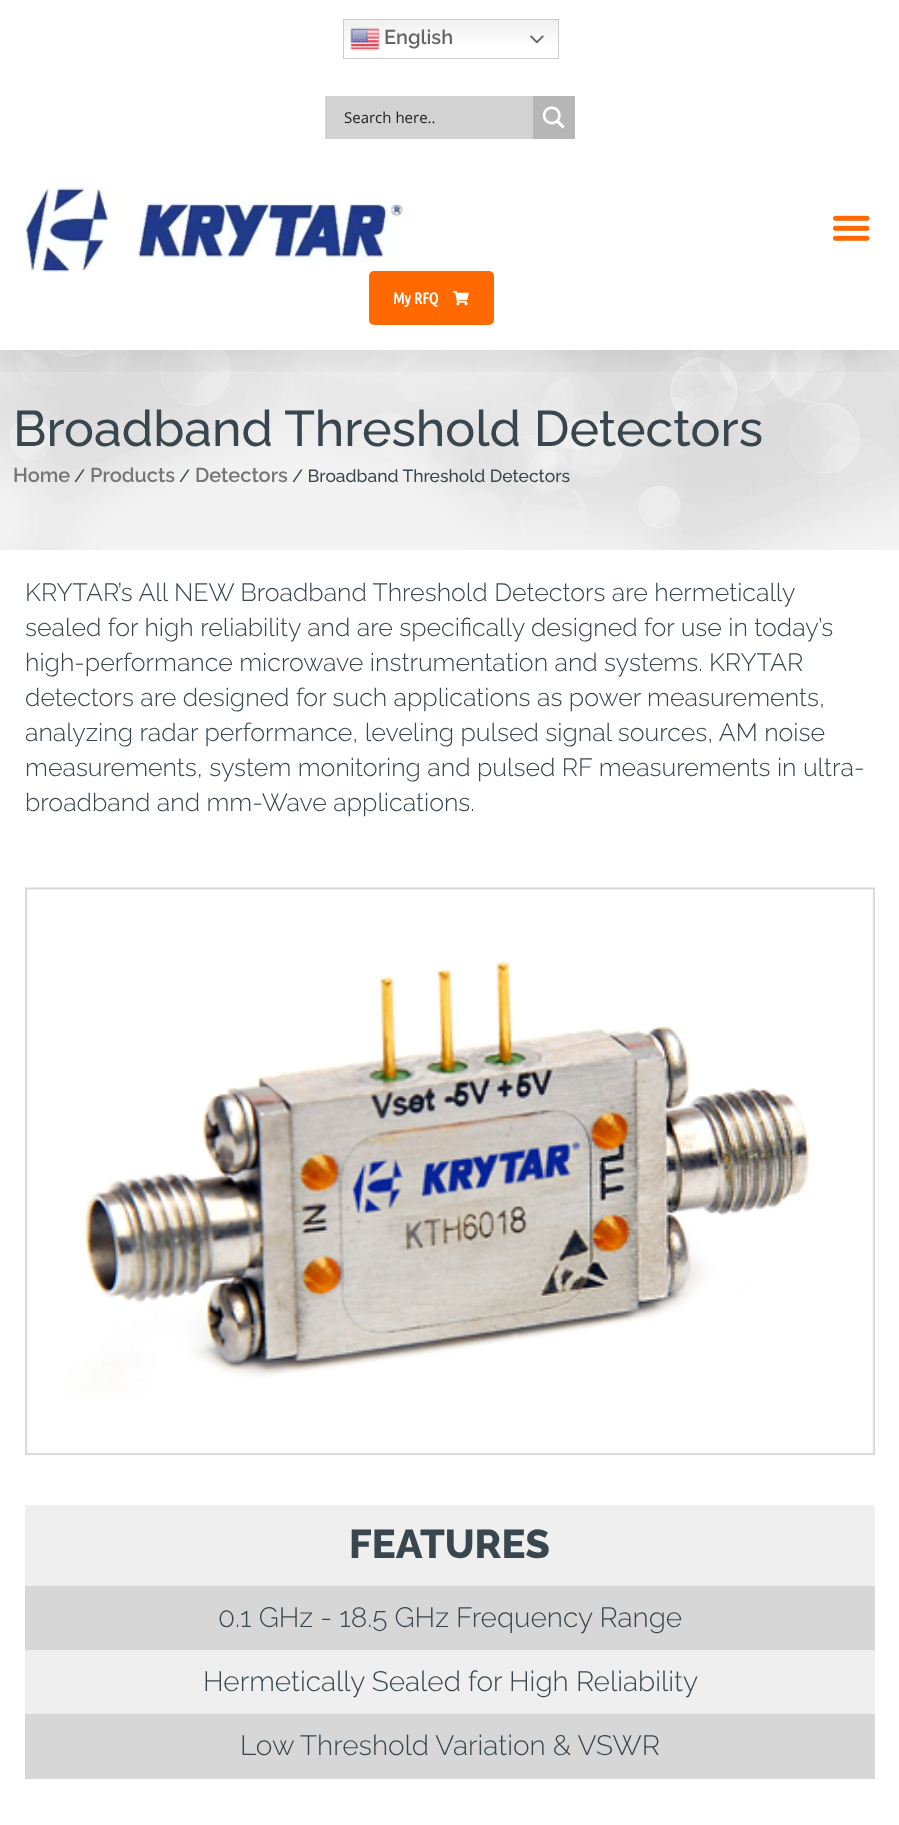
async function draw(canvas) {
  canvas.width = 899
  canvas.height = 1825
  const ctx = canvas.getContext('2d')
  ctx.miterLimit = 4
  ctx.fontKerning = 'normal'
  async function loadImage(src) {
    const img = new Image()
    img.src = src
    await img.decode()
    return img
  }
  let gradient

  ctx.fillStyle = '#fff'
  ctx.fillRect(0, 0, 899, 1825)
  ctx.fillStyle = '#f3f3f3'
  ctx.fillRect(0, 350, 899, 200)
  ctx.drawImage(await loadImage('image6.png'), 0, 350, 899, 200)
  ctx.save()
  ctx.beginPath()
  ctx.rect(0, 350, 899, 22)
  ctx.clip()
  ctx.fillStyle = '#0000001a'
  ctx.filter = 'blur(19px)'
  ctx.beginPath()
  ctx.rect(0, 6, 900, 350)
  ctx.fill()
  ctx.filter = 'none'
  ctx.restore()
  gradient = ctx.createLinearGradient(451, 19, 451, 59)
  gradient.addColorStop(0, '#efefef')
  gradient.addColorStop(0.7, '#fff')
  ctx.fillStyle = gradient
  ctx.fillRect(344, 20, 214, 23)
  ctx.strokeStyle = '#ccc'
  ctx.strokeRect(343.5, 19.5, 215, 39)
  ctx.drawImage(await loadImage('image0.png'), 350, 27, 30, 24)
  ctx.font = '600 20px Raleway'
  ctx.fillStyle = '#666'
  ctx.fillText('English', 384, 44)
  ctx.drawImage(await loadImage('image1.png'), 530, 35, 14, 9)
  ctx.fillStyle = '#d2d2d2'
  ctx.fillRect(325, 96, 208, 43)
  ctx.font = '15px Open Sans'
  ctx.fillStyle = '#202020'
  ctx.fillText('Search here..', 344, 123)
  ctx.fillStyle = '#b6b6b6'
  ctx.fillRect(533, 96, 42, 43)
  ctx.drawImage(await loadImage('image2.png'), 542, 106, 23, 23)
  ctx.drawImage(await loadImage('image3.png'), 19, 187, 385, 85)
  ctx.drawImage(await loadImage('image4.png'), 832, 215, 38, 26)
  ctx.fillStyle = '#ff6900'
  ctx.beginPath()
  ctx.roundRect(369, 271, 125, 54, 5)
  ctx.fill()
  ctx.font = 'bold 16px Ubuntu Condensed'
  ctx.fillStyle = '#fff'
  ctx.fillText('My RFQ', 393, 304)
  ctx.drawImage(await loadImage('image5.png'), 453, 290, 16, 16)
  ctx.font = '500 50px Raleway'
  ctx.fillStyle = '#39464e'
  ctx.fillText('Broadband Threshold Detectors', 13, 446)
  ctx.font = '600 20px Raleway'
  ctx.fillStyle = '#767676'
  ctx.fillText('Home', 13, 482)
  ctx.font = '500 17.5px Raleway'
  ctx.fillStyle = '#39464e'
  ctx.fillText('/', 74, 482)
  ctx.font = '600 20px Raleway'
  ctx.fillStyle = '#767676'
  ctx.fillText('Products', 90, 482)
  ctx.font = '500 17.5px Raleway'
  ctx.fillStyle = '#39464e'
  ctx.fillText('/', 179, 482)
  ctx.font = '600 20px Raleway'
  ctx.fillStyle = '#767676'
  ctx.fillText('Detectors', 195, 482)
  ctx.font = '500 17.5px Raleway'
  ctx.fillStyle = '#39464e'
  ctx.fillText('/ Broadband Threshold Detectors', 292, 482)
  ctx.font = '300 25px Raleway'
  ctx.fillText('KRYTAR’s All NEW Broadband Threshold Detectors are hermetically', 25, 601)
  ctx.fillText('sealed for high reliability and are specifically designed for use in today’s', 25, 636)
  ctx.fillText('high-performance microwave instrumentation and systems. KRYTAR', 25, 671)
  ctx.fillText('detectors are designed for such applications as power measurements,', 25, 706)
  ctx.fillText('analyzing radar performance, leveling pulsed signal sources, AM noise', 25, 741)
  ctx.fillText('measurements, system monitoring and pulsed RF measurements in ultra-', 25, 776)
  ctx.fillText('broadband and mm-Wave applications.', 25, 811)
  ctx.drawImage(await loadImage('image7.png'), 25, 887, 850, 568)
  ctx.fillStyle = '#efefef'
  ctx.fillRect(25, 1505, 850, 81)
  ctx.font = '800 40px Raleway'
  ctx.fillStyle = '#39464e'
  ctx.fillText('FEATURES', 349, 1558)
  ctx.fillStyle = '#d7d7d7'
  ctx.fillRect(25, 1586, 850, 64)
  ctx.font = '300 28px Raleway'
  ctx.fillStyle = '#39464e'
  ctx.fillText('0.1 GHz - 18.5 GHz Frequency Range', 218, 1627)
  ctx.fillStyle = '#efefef'
  ctx.fillRect(25, 1650, 850, 64)
  ctx.fillStyle = '#39464e'
  ctx.fillText('Hermetically Sealed for High Reliability', 203, 1691)
  ctx.fillStyle = '#d7d7d7'
  ctx.fillRect(25, 1714, 850, 65)
  ctx.fillStyle = '#39464e'
  ctx.fillText('Low Threshold Variation & VSWR', 240, 1755)
}

draw(document.querySelector('canvas'))
